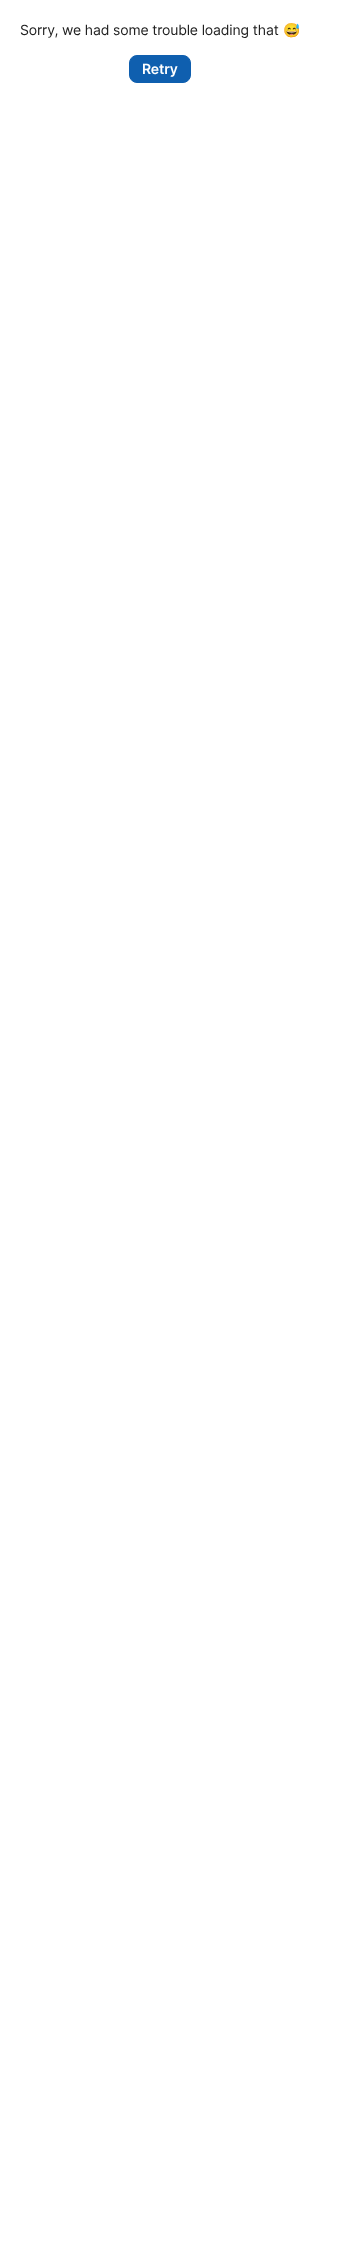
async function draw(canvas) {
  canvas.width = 362
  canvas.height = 2263
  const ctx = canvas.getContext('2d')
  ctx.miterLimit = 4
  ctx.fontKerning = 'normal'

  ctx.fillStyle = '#fff'
  ctx.fillRect(0, 0, 362, 2263)
  ctx.letterSpacing = '-0.15px'
  ctx.font = '14px Inter'
  ctx.fillStyle = '#212121'
  ctx.fillText('Sorry, we had some trouble loading that', 20, 35)
  ctx.font = '14px Noto Color Emoji'
  ctx.fillText('😅', 283, 35)
  ctx.fillStyle = '#0f5faf'
  ctx.beginPath()
  ctx.roundRect(129.5, 55.5, 61, 27, 7.5)
  ctx.fill()
  ctx.strokeStyle = '#0f5faf'
  ctx.stroke()
  ctx.font = '600 14px Inter'
  ctx.fillStyle = '#fff'
  ctx.fillText('Retry', 142, 74)
}

draw(document.querySelector('canvas'))
